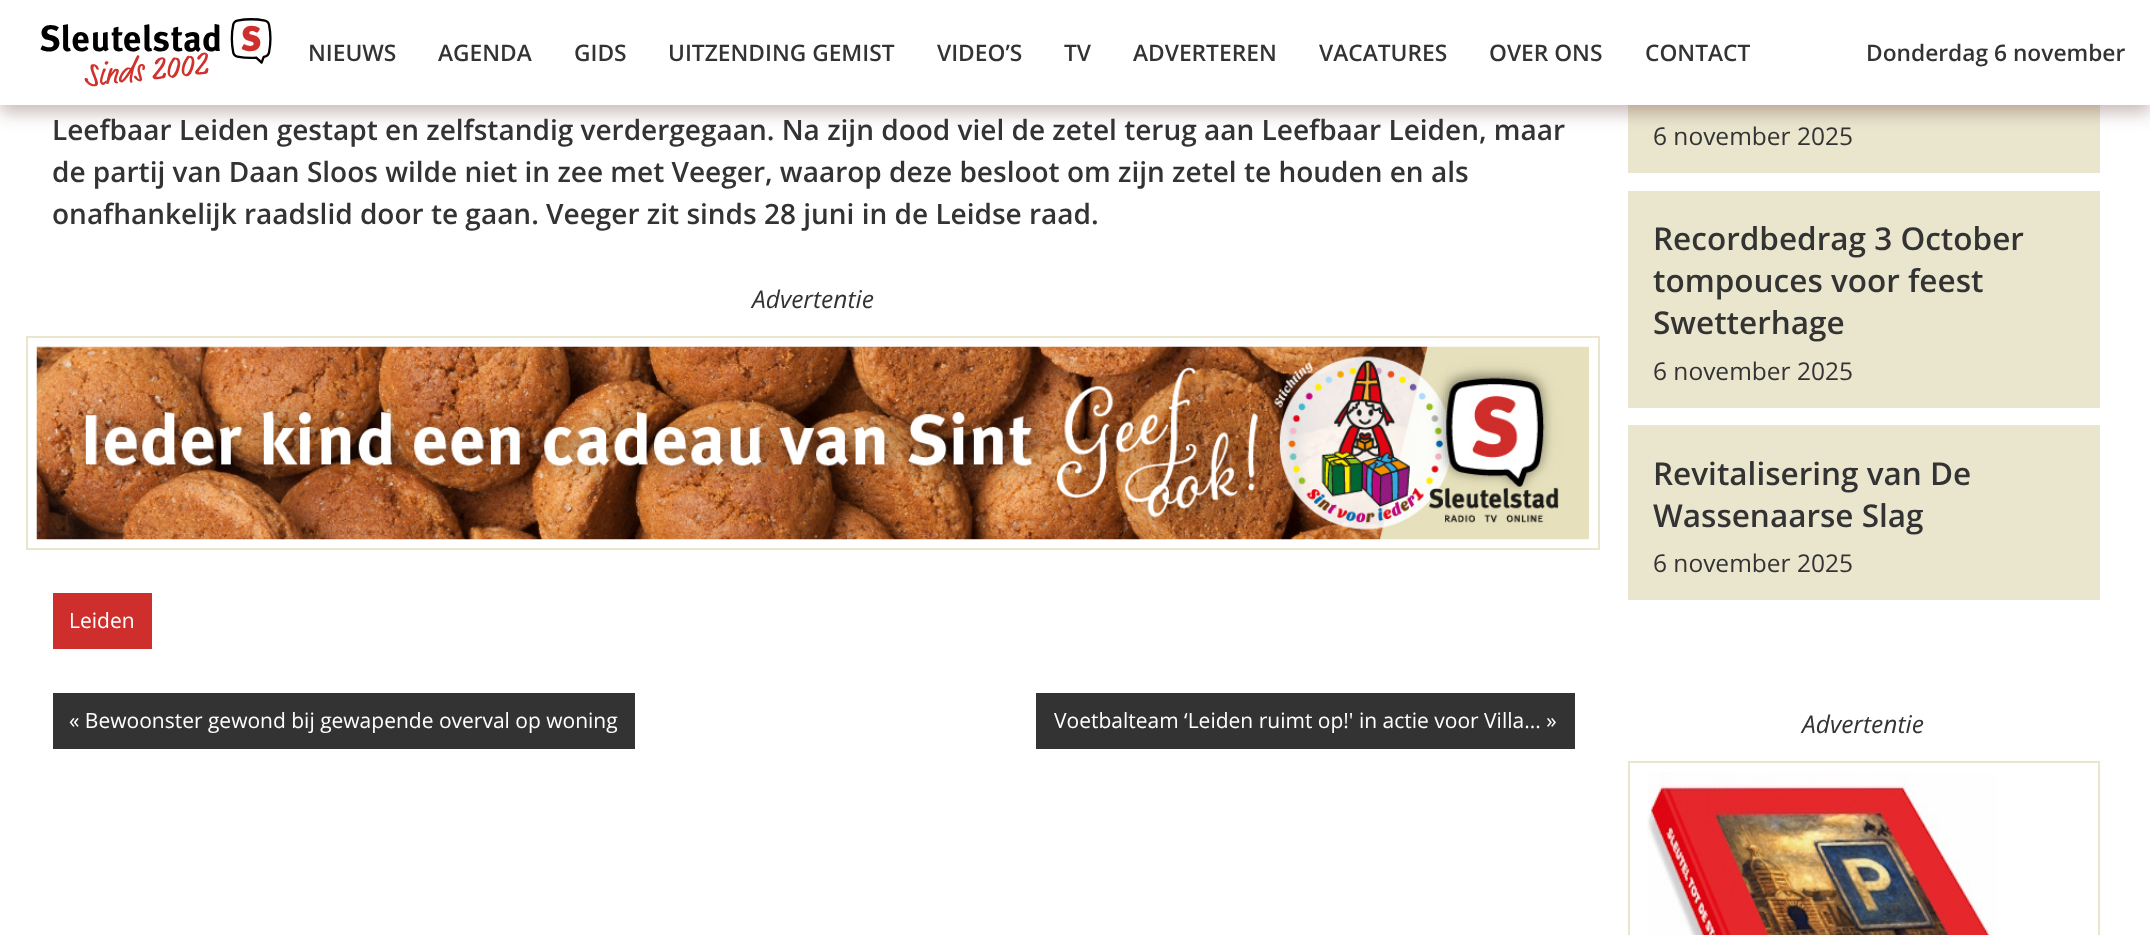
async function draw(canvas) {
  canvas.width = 2150
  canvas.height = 935
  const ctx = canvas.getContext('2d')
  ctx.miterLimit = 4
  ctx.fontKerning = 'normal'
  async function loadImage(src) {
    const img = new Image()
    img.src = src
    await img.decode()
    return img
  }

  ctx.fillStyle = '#fff'
  ctx.fillRect(0, 0, 2150, 935)
  ctx.fillStyle = '#eae6ce'
  ctx.fillRect(1628, 105, 472, 68)
  ctx.fillStyle = '#430b0a4d'
  ctx.filter = 'blur(9px)'
  ctx.beginPath()
  ctx.rect(0, 7, 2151, 105)
  ctx.fill()
  ctx.filter = 'none'
  ctx.fillStyle = '#fff'
  ctx.fillRect(0, 0, 2150, 105)
  ctx.drawImage(await loadImage('image0.png'), 40, 18, 232, 69)
  ctx.font = '600 22.75px Open Sans'
  ctx.fillStyle = '#333'
  ctx.fillText('NIEUWS', 308, 61)
  ctx.fillText('AGENDA', 438, 61)
  ctx.fillText('GIDS', 574, 61)
  ctx.fillText('UITZENDING GEMIST', 668, 61)
  ctx.fillText('VIDEO’S', 937, 61)
  ctx.fillText('TV', 1064, 61)
  ctx.fillText('ADVERTEREN', 1133, 61)
  ctx.fillText('VACATURES', 1319, 61)
  ctx.fillText('OVER ONS', 1489, 61)
  ctx.fillText('CONTACT', 1645, 61)
  ctx.fillText('Donderdag 6 november', 1866, 61)
  ctx.font = '600 28px Open Sans'
  ctx.fillText('Leefbaar Leiden gestapt en zelfstandig verdergegaan. Na zijn dood viel de zetel terug aan Leefbaar Leiden, maar', 52, 140)
  ctx.fillText('de partij van Daan Sloos wilde niet in zee met Veeger, waarop deze besloot om zijn zetel te houden en als', 52, 182)
  ctx.fillText('onafhankelijk raadslid door te gaan. Veeger zit sinds 28 juni in de Leidse raad.', 52, 224)
  ctx.font = 'italic 24.5px Open Sans'
  ctx.fillText('Advertentie', 752, 308)
  ctx.strokeStyle = '#eae6ce'
  ctx.lineWidth = 2
  ctx.strokeRect(27, 337, 1572, 212)
  ctx.drawImage(await loadImage('image1.png'), 36, 346, 1553, 194)
  ctx.fillStyle = '#cf2f2c'
  ctx.fillRect(53, 593, 99, 56)
  ctx.font = '21px Open Sans'
  ctx.fillStyle = '#fff'
  ctx.fillText('Leiden', 69, 628)
  ctx.fillStyle = '#333'
  ctx.fillRect(53, 693, 582, 56)
  ctx.fillStyle = '#fff'
  ctx.fillText('« Bewoonster gewond bij gewapende overval op woning', 69, 728)
  ctx.fillStyle = '#333'
  ctx.fillRect(1036, 693, 539, 56)
  ctx.fillStyle = '#fff'
  ctx.fillText('Voetbalteam ‘Leiden ruimt op!\' in actie voor Villa... »', 1054, 728)
  ctx.font = '24.5px Open Sans'
  ctx.fillStyle = '#333'
  ctx.fillText('6 november 2025', 1653, 145)
  ctx.fillStyle = '#eae6ce'
  ctx.fillRect(1628, 191, 472, 217)
  ctx.font = '600 31.5px Open Sans'
  ctx.fillStyle = '#333'
  ctx.fillText('Recordbedrag 3 October', 1653, 250)
  ctx.fillText('tompouces voor feest', 1653, 292)
  ctx.fillText('Swetterhage', 1653, 334)
  ctx.font = '24.5px Open Sans'
  ctx.fillText('6 november 2025', 1653, 380)
  ctx.fillStyle = '#eae6ce'
  ctx.fillRect(1628, 425, 472, 175)
  ctx.font = '600 31.5px Open Sans'
  ctx.fillStyle = '#333'
  ctx.fillText('Revitalisering van De', 1653, 485)
  ctx.fillText('Wassenaarse Slag', 1653, 527)
  ctx.font = '24.5px Open Sans'
  ctx.fillText('6 november 2025', 1653, 572)
  ctx.font = 'italic 24.5px Open Sans'
  ctx.fillText('Advertentie', 1802, 733)
  ctx.strokeRect(1629, 762, 470, 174)
  ctx.drawImage(await loadImage('image2.png'), 1647, 772, 350, 163)
}

draw(document.querySelector('canvas'))
